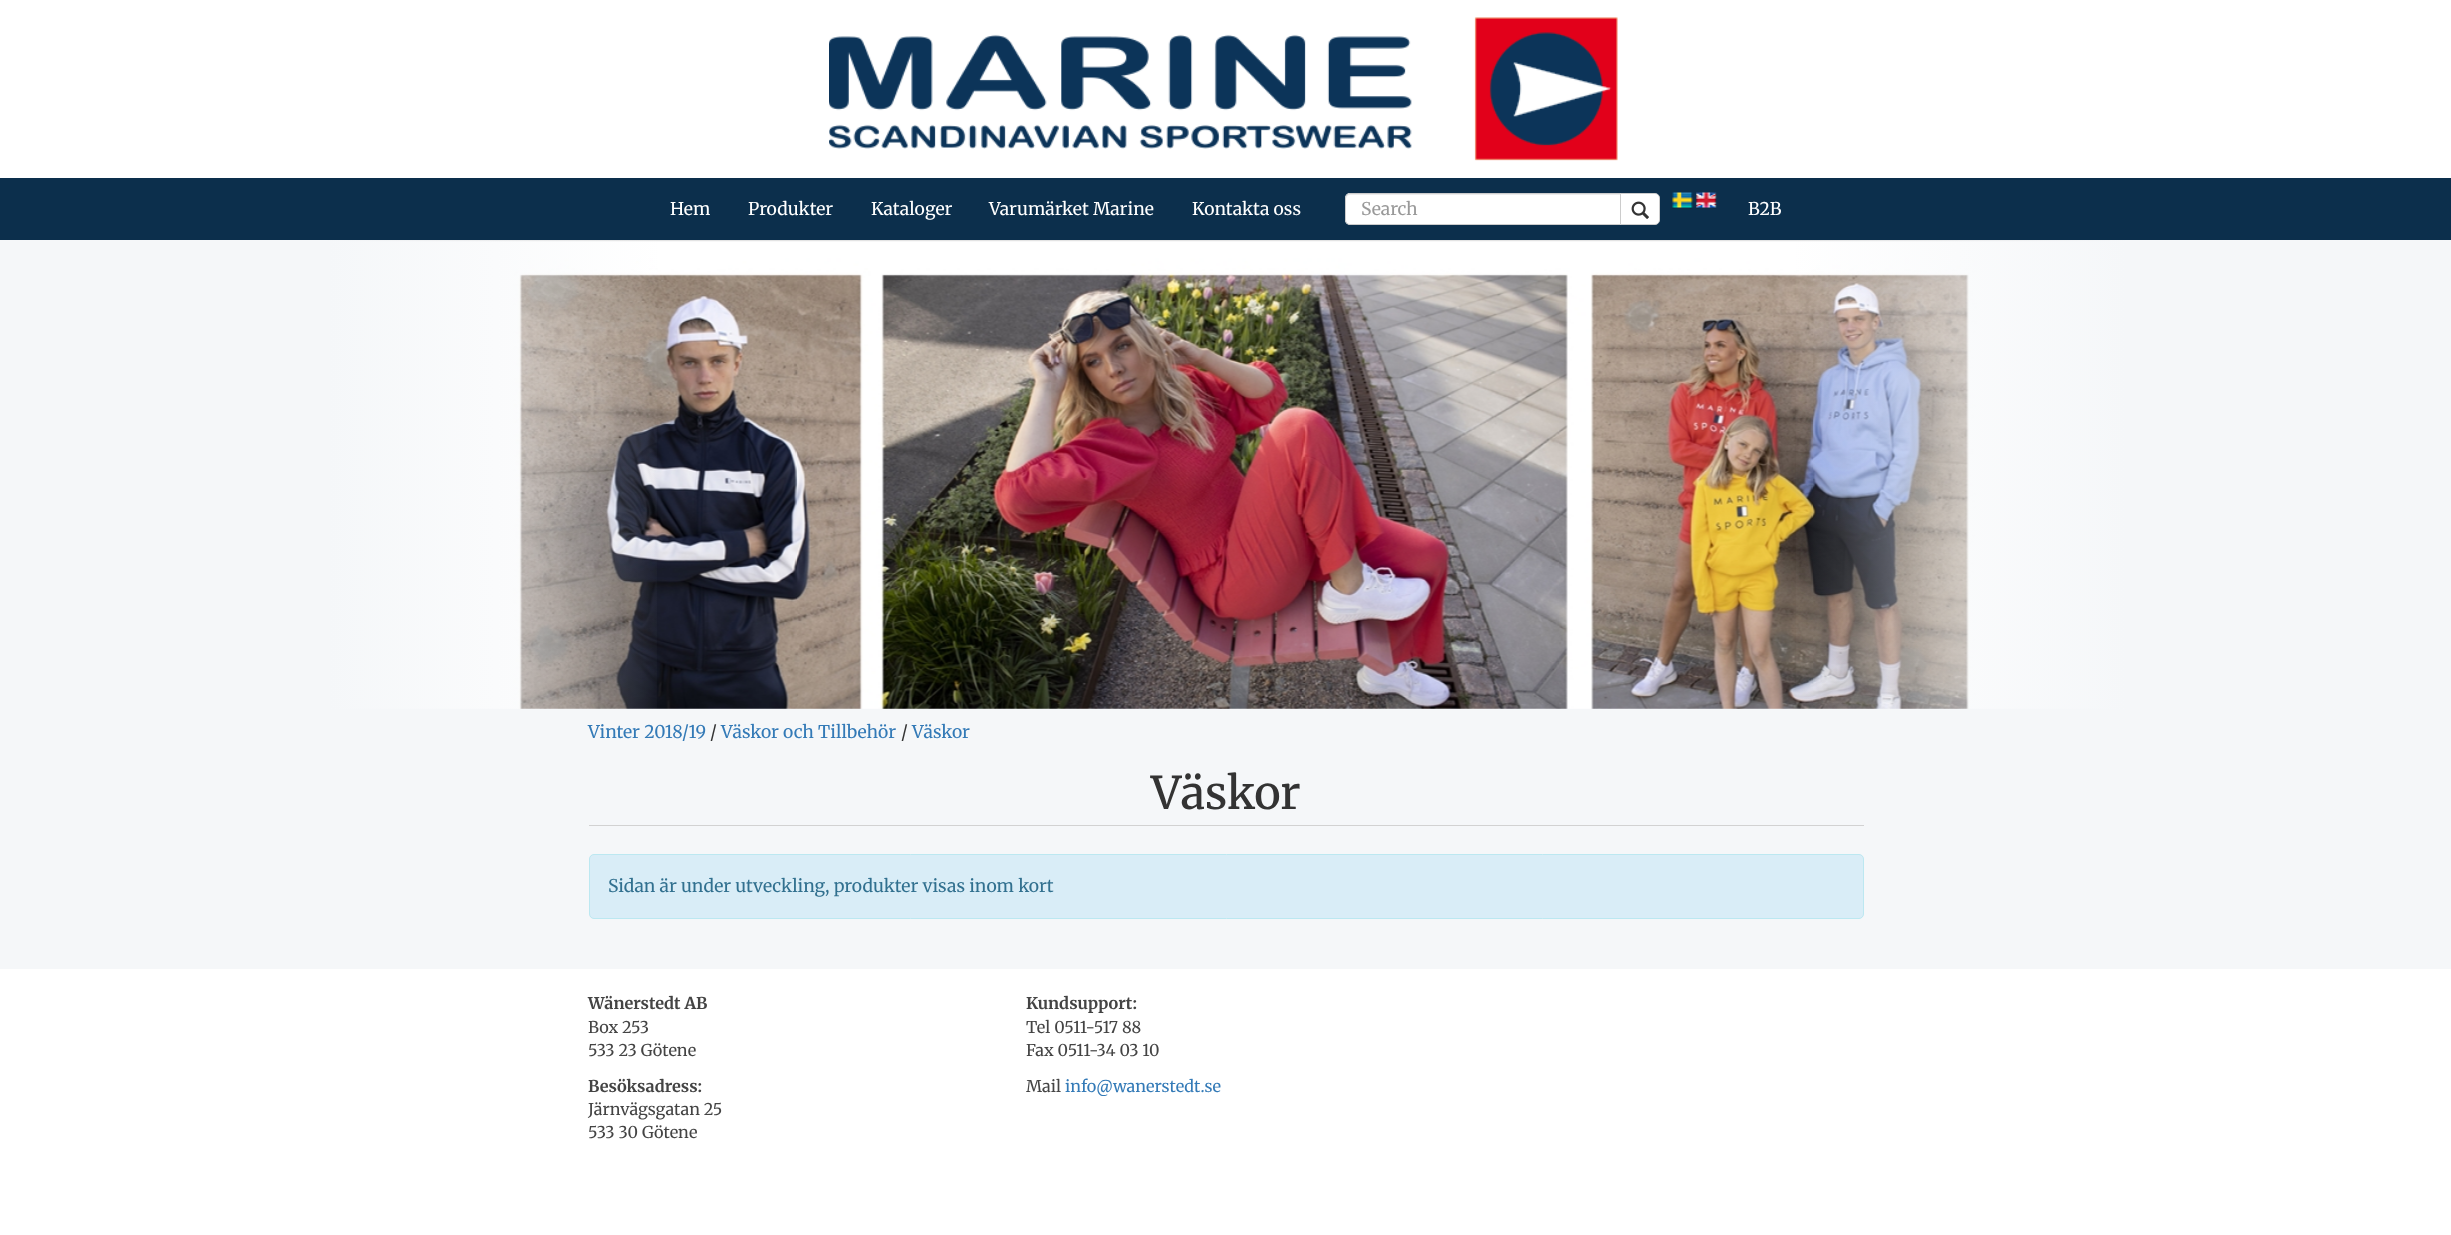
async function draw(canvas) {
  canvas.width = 2451
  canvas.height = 1235
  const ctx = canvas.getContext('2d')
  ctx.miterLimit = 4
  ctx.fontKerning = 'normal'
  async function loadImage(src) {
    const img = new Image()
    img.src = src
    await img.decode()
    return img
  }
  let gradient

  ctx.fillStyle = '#fff'
  ctx.fillRect(0, 0, 2451, 1235)
  ctx.drawImage(await loadImage('image0.png'), 829, 17, 789, 144)
  ctx.fillStyle = '#0c2f4c'
  ctx.fillRect(0, 178, 2451, 62)
  ctx.font = '17.5px Merriweather'
  ctx.fillStyle = '#fff'
  ctx.fillText('Hem', 670, 215)
  ctx.fillText('Produkter', 748, 215)
  ctx.fillText('Kataloger', 871, 215)
  ctx.fillText('Varumärket Marine', 989, 215)
  ctx.fillText('Kontakta oss', 1192, 215)
  ctx.beginPath()
  ctx.roundRect(1345, 193, 276, 32, [5, 0, 0, 5])
  ctx.fill()
  ctx.fillStyle = '#ececec'
  ctx.beginPath()
  ctx.moveTo(1350, 195)
  ctx.lineTo(1620, 195)
  ctx.lineTo(1620, 194)
  ctx.lineTo(1350, 194)
  ctx.bezierCurveTo(1347, 194, 1346, 196, 1346, 199)
  ctx.bezierCurveTo(1346, 197, 1348, 195, 1350, 195)
  ctx.closePath()
  ctx.fill()
  ctx.beginPath()
  ctx.roundRect(1345.5, 193.5, 275, 31, [4.5, 0, 0, 4.5])
  ctx.strokeStyle = '#ccc'
  ctx.stroke()
  ctx.fillStyle = '#999'
  ctx.fillText('Search', 1361, 215)
  ctx.fillStyle = '#fff'
  ctx.beginPath()
  ctx.roundRect(1620.5, 193.5, 39, 31, [0, 4.5, 4.5, 0])
  ctx.fill()
  ctx.stroke()
  ctx.drawImage(await loadImage('image1.png'), 1631, 201, 18, 18)
  ctx.drawImage(await loadImage('image2.png'), 1672, 192, 22, 17)
  ctx.drawImage(await loadImage('image3.png'), 1696, 192, 21, 17)
  ctx.fillText('B2B', 1748, 215)
  ctx.fillStyle = '#f5f7f9'
  ctx.fillRect(0, 240, 2451, 729)
  ctx.drawImage(await loadImage('image4.png'), 328, 240, 1797, 469)
  gradient = ctx.createLinearGradient(289, 474, 664, 474)
  gradient.addColorStop(0, '#f5f7f9')
  gradient.addColorStop(0.1, '#f5f7f9')
  gradient.addColorStop(1, '#f5f7f900')
  ctx.fillStyle = gradient
  ctx.fillRect(328, 240, 329, 469)
  gradient = ctx.createLinearGradient(2164, 474, 1789, 474)
  gradient.addColorStop(0, '#f5f7f9')
  gradient.addColorStop(0.1, '#f5f7f9')
  gradient.addColorStop(1, '#f5f7f900')
  ctx.fillStyle = gradient
  ctx.fillRect(1796, 240, 329, 469)
  ctx.fillStyle = '#337ab7'
  ctx.fillText('Vinter 2018/19', 588, 738)
  ctx.fillStyle = '#333'
  ctx.fillText('/', 710, 738)
  ctx.fillStyle = '#337ab7'
  ctx.fillText('Väskor och Tillbehör', 721, 738)
  ctx.fillStyle = '#333'
  ctx.fillText('/', 901, 738)
  ctx.fillStyle = '#337ab7'
  ctx.fillText('Väskor', 912, 738)
  ctx.fillStyle = '#d2d2d2'
  ctx.fillRect(589, 825, 1275, 1)
  ctx.font = '500 45px Merriweather'
  ctx.fillStyle = '#333'
  ctx.fillText('Väskor', 1151, 809)
  ctx.fillStyle = '#d9edf7'
  ctx.beginPath()
  ctx.roundRect(589.5, 854.5, 1274, 64, 4.5)
  ctx.fill()
  ctx.strokeStyle = '#bce8f1'
  ctx.stroke()
  ctx.font = '17.5px Merriweather'
  ctx.fillStyle = '#31708f'
  ctx.fillText('Sidan är under utveckling, produkter visas inom kort', 608, 892)
  ctx.font = 'bold 16.25px Merriweather'
  ctx.fillStyle = '#444'
  ctx.fillText('Wänerstedt AB', 588, 1009)
  ctx.font = '16.25px Merriweather'
  ctx.fillText('Box 253', 588, 1033)
  ctx.fillText('533 23 Götene', 588, 1056)
  ctx.font = 'bold 16.25px Merriweather'
  ctx.fillText('Besöksadress:', 588, 1092)
  ctx.font = '16.25px Merriweather'
  ctx.fillText('Järnvägsgatan 25', 588, 1115)
  ctx.fillText('533 30 Götene', 588, 1138)
  ctx.font = 'bold 16.25px Merriweather'
  ctx.fillText('Kundsupport:', 1026, 1009)
  ctx.font = '16.25px Merriweather'
  ctx.fillText('Tel 0511-517 88', 1026, 1033)
  ctx.fillText('Fax 0511-34 03 10', 1026, 1056)
  ctx.fillText('Mail', 1026, 1092)
  ctx.fillStyle = '#337ab7'
  ctx.fillText('info@wanerstedt.se', 1065, 1092)
}

draw(document.querySelector('canvas'))
